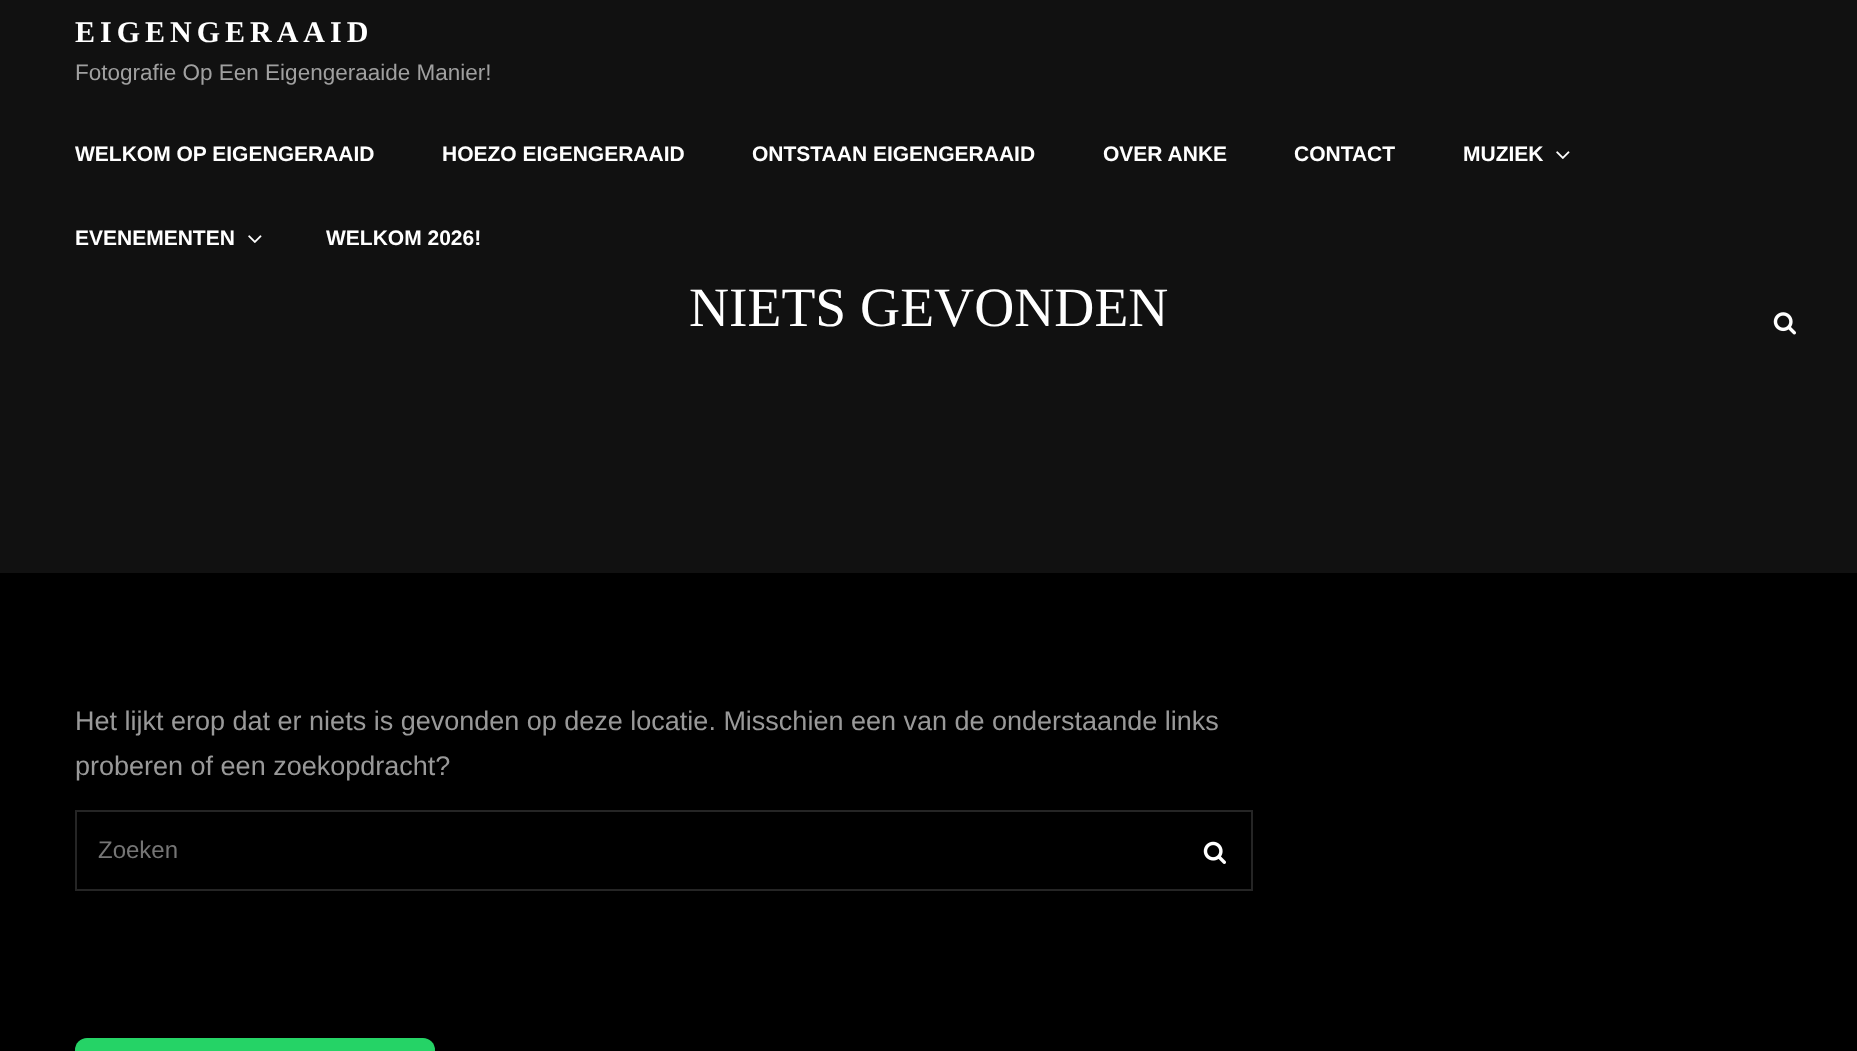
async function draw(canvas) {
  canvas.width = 1857
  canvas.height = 1051
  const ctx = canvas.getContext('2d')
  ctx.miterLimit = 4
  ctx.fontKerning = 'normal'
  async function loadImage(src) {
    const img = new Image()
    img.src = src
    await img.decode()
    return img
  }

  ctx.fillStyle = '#000'
  ctx.fillRect(0, 0, 1857, 1051)
  ctx.fillStyle = '#111'
  ctx.fillRect(0, 0, 1857, 573)
  ctx.letterSpacing = '5px'
  ctx.font = 'bold 30px Liberation Serif'
  ctx.fillStyle = '#fff'
  ctx.fillText('EIGENGERAAID', 75, 42)
  ctx.letterSpacing = '0px'
  ctx.font = '22.5px Liberation Sans'
  ctx.fillStyle = '#a0a0a0'
  ctx.fillText('Fotografie Op Een Eigengeraaide Manier!', 75, 80)
  ctx.font = 'bold 21px Liberation Sans'
  ctx.fillStyle = '#fff'
  ctx.fillText('WELKOM OP EIGENGERAAID', 75, 161)
  ctx.fillText('HOEZO EIGENGERAAID', 442, 161)
  ctx.fillText('ONTSTAAN EIGENGERAAID', 752, 161)
  ctx.fillText('OVER ANKE', 1103, 161)
  ctx.fillText('CONTACT', 1294, 161)
  ctx.fillText('MUZIEK', 1463, 161)
  ctx.drawImage(await loadImage('image0.png'), 1556, 151, 14, 8)
  ctx.fillText('EVENEMENTEN', 75, 245)
  ctx.drawImage(await loadImage('image0.png'), 248, 235, 14, 8)
  ctx.fillText('WELKOM 2026!', 326, 245)
  ctx.drawImage(await loadImage('image1.png'), 1773, 312, 23, 23)
  ctx.font = '55.5px Liberation Serif'
  ctx.fillText('NIETS GEVONDEN', 689, 326)
  ctx.font = '27px Liberation Sans'
  ctx.fillStyle = '#999'
  ctx.fillText('Het lijkt erop dat er niets is gevonden op deze locatie. Misschien een van de onderstaande links', 75, 730)
  ctx.fillText('proberen of een zoekopdracht?', 75, 775)
  ctx.strokeStyle = '#252525'
  ctx.lineWidth = 2
  ctx.strokeRect(76, 811, 1176, 79)
  ctx.font = '24px Liberation Sans'
  ctx.fillStyle = '#757575'
  ctx.fillText('Zoeken', 98, 858)
  ctx.drawImage(await loadImage('image2.png'), 1203, 841, 23, 23)
  ctx.fillStyle = '#25d366'
  ctx.beginPath()
  ctx.roundRect(75, 1038, 360, 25, 12)
  ctx.fill()
}

draw(document.querySelector('canvas'))
